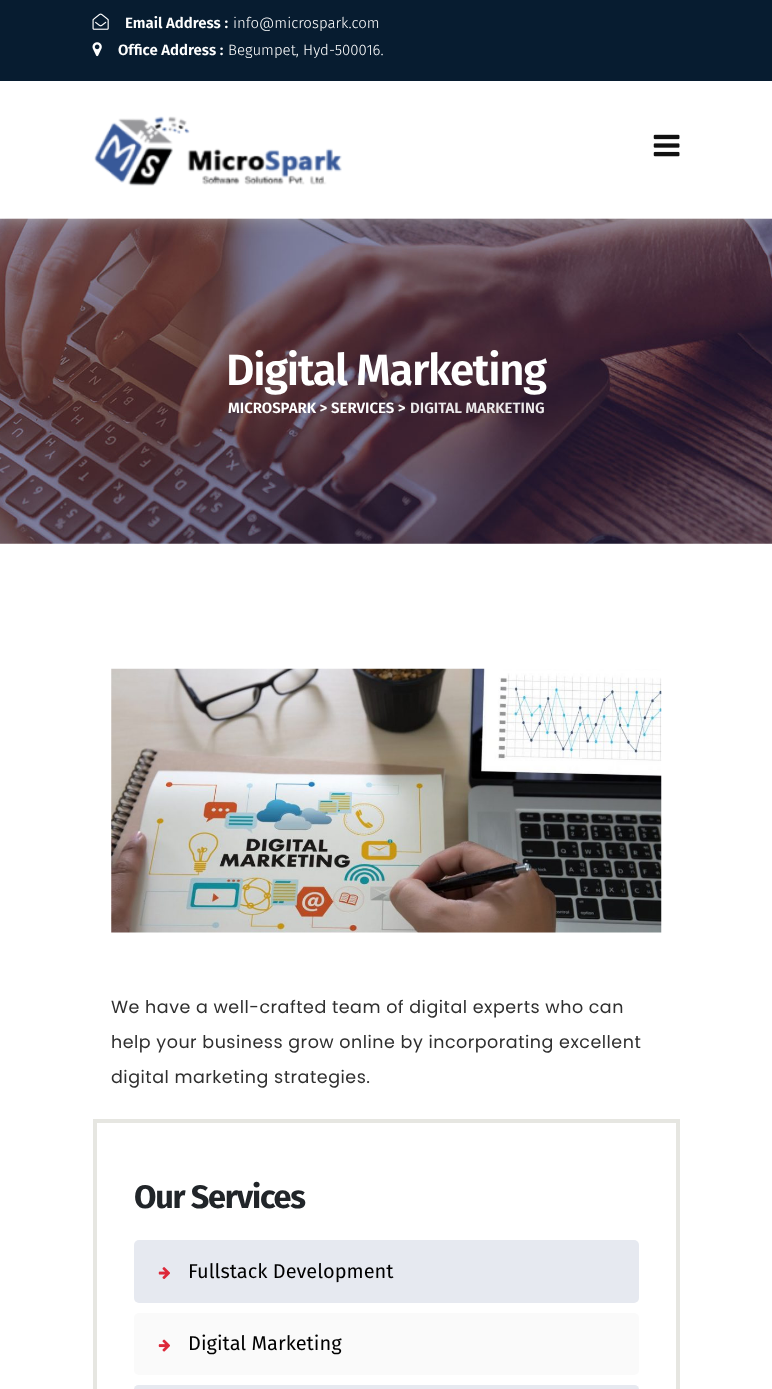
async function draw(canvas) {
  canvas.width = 772
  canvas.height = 1389
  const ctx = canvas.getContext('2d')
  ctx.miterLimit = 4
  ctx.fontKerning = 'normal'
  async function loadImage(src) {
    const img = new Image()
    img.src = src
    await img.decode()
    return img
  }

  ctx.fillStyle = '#fff'
  ctx.fillRect(0, 0, 772, 1389)
  ctx.drawImage(await loadImage('image4.png'), 0, 218, 772, 326)
  ctx.save()
  ctx.beginPath()
  ctx.moveTo(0, 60)
  ctx.lineTo(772, 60)
  ctx.lineTo(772, 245)
  ctx.lineTo(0, 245)
  ctx.closePath()
  ctx.moveTo(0, 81)
  ctx.lineTo(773, 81)
  ctx.lineTo(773, 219)
  ctx.lineTo(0, 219)
  ctx.closePath()
  ctx.clip('evenodd')
  ctx.fillStyle = '#bababa'
  ctx.filter = 'blur(9.5px)'
  ctx.beginPath()
  ctx.rect(1, 90, 760, 125)
  ctx.fill()
  ctx.filter = 'none'
  ctx.restore()
  ctx.fillStyle = '#071c30'
  ctx.fillRect(0, 0, 772, 81)
  ctx.drawImage(await loadImage('image0.png'), 92, 13, 17, 17)
  ctx.font = '600 15px Fira Sans'
  ctx.fillStyle = '#fff'
  ctx.fillText('Email Address :', 125, 28)
  ctx.font = '300 15px Fira Sans'
  ctx.fillText('info@microspark.com', 233, 28)
  ctx.drawImage(await loadImage('image1.png'), 92, 42, 10, 15)
  ctx.font = '600 15px Fira Sans'
  ctx.fillText('Office Address :', 118, 55)
  ctx.font = '300 15px Fira Sans'
  ctx.fillText('Begumpet, Hyd-500016.', 228, 55)
  ctx.drawImage(await loadImage('image2.png'), 94, 116, 248, 70)
  ctx.drawImage(await loadImage('image3.png'), 653, 134, 27, 23)
  ctx.letterSpacing = '-1.25px'
  ctx.font = '600 43.75px Fira Sans'
  ctx.fillText('Digital Marketing', 226, 385)
  ctx.letterSpacing = '0px'
  ctx.font = '600 15px Fira Sans'
  ctx.fillText('MICROSPARK > SERVICES >', 228, 413)
  ctx.fillStyle = '#ebe9ea'
  ctx.fillText('DIGITAL MARKETING', 410, 413)
  ctx.drawImage(await loadImage('image5.png'), 111, 668, 551, 265)
  ctx.letterSpacing = '0.5px'
  ctx.font = '17.5px Poppins'
  ctx.fillStyle = '#2f2f2f'
  ctx.fillText('We have a well-crafted team of digital experts who can', 111, 1013)
  ctx.fillText('help your business grow online by incorporating excellent', 111, 1048)
  ctx.fillText('digital marketing strategies.', 111, 1083)
  ctx.strokeStyle = '#e6e6e1'
  ctx.lineWidth = 4
  ctx.strokeRect(95, 1121, 583, 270)
  ctx.letterSpacing = '-1.25px'
  ctx.font = 'bold 32.5px Fira Sans'
  ctx.fillStyle = '#212529'
  ctx.fillText('Our Services', 134, 1208)
  ctx.fillStyle = '#e6e9f0'
  ctx.beginPath()
  ctx.roundRect(134, 1240, 505, 63, 5)
  ctx.fill()
  ctx.drawImage(await loadImage('image6.png'), 158, 1267, 12, 12)
  ctx.letterSpacing = '0px'
  ctx.font = '20px Fira Sans'
  ctx.fillStyle = '#000'
  ctx.fillText('Fullstack Development', 188, 1278)
  ctx.fillStyle = '#fafafa'
  ctx.beginPath()
  ctx.roundRect(134, 1313, 505, 62, 5)
  ctx.fill()
  ctx.drawImage(await loadImage('image7.png'), 158, 1339, 12, 13)
  ctx.fillStyle = '#000'
  ctx.fillText('Digital Marketing', 188, 1350)
  ctx.fillStyle = '#e6e9f0'
  ctx.beginPath()
  ctx.roundRect(134, 1385, 505, 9, 5)
  ctx.fill()
}

draw(document.querySelector('canvas'))
